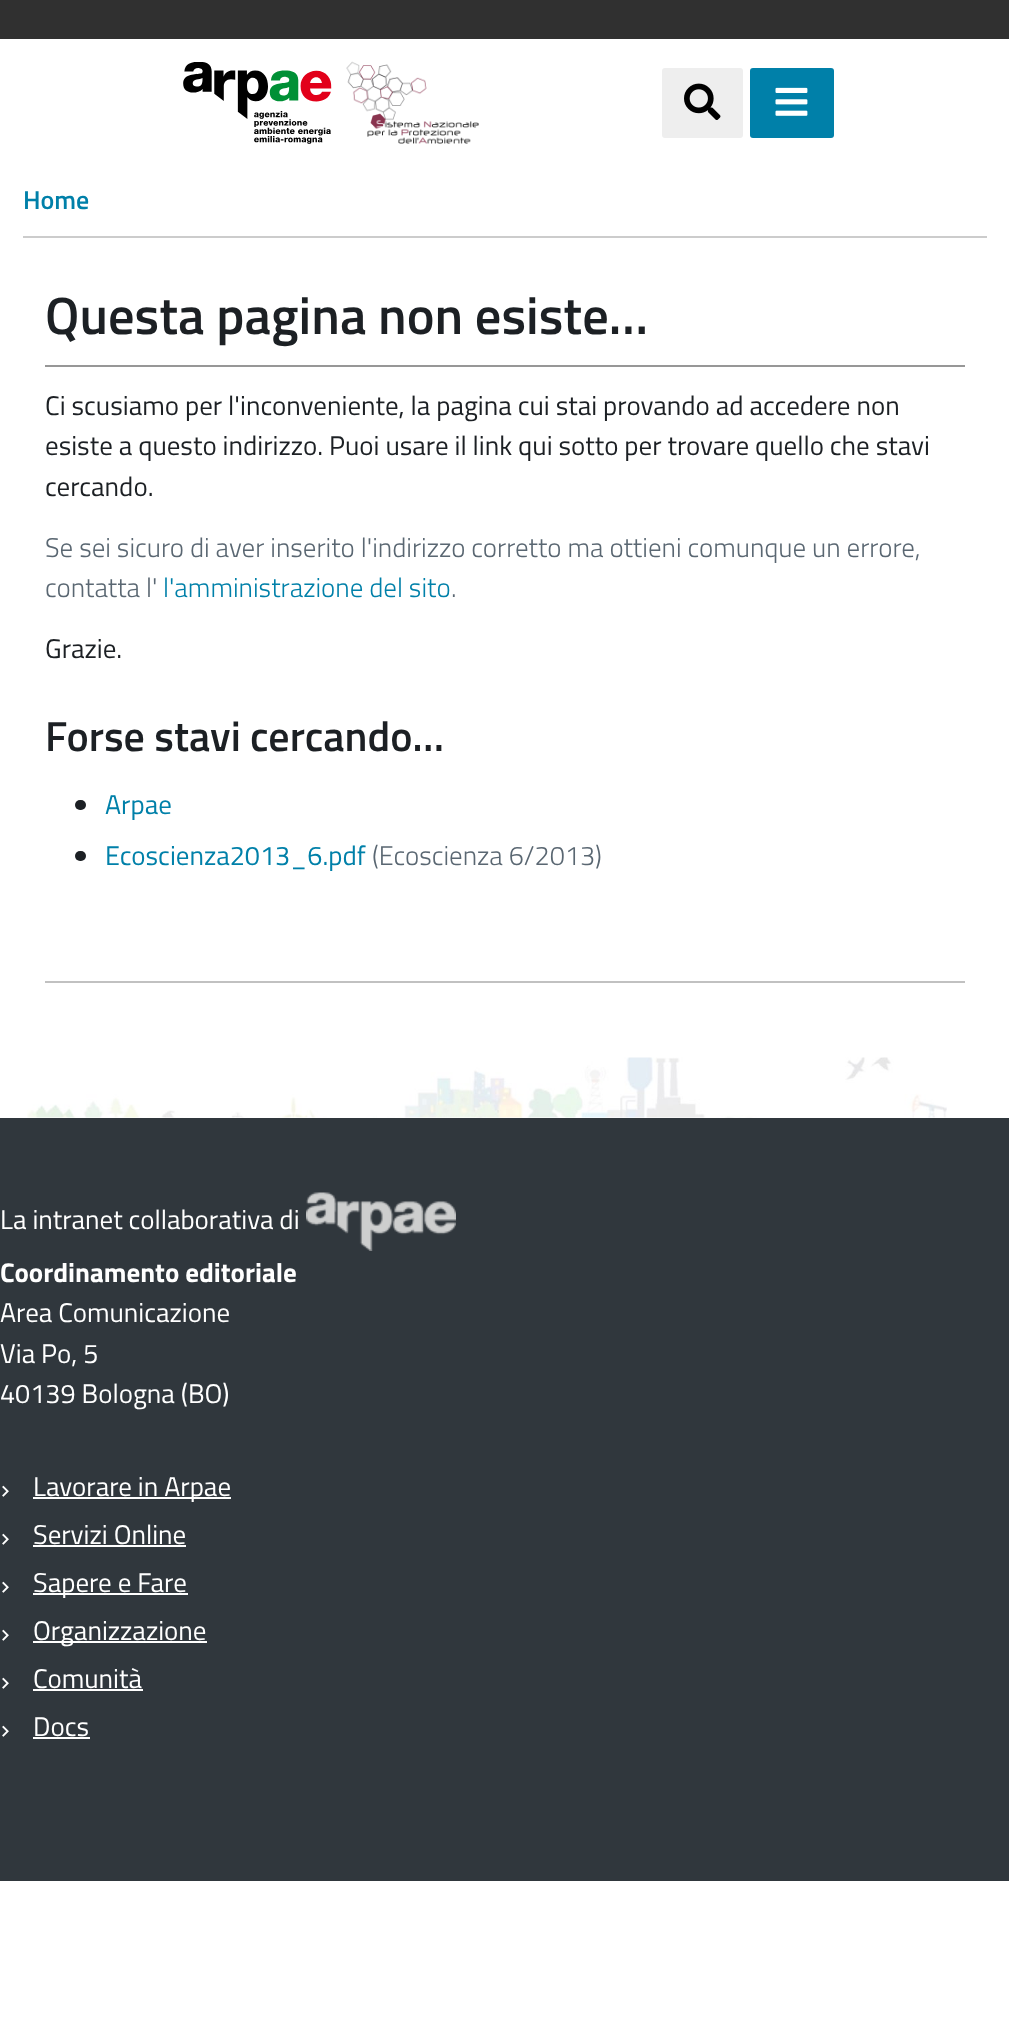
async function draw(canvas) {
  canvas.width = 1009
  canvas.height = 2018
  const ctx = canvas.getContext('2d')
  ctx.miterLimit = 4
  ctx.fontKerning = 'normal'
  async function loadImage(src) {
    const img = new Image()
    img.src = src
    await img.decode()
    return img
  }

  ctx.fillStyle = '#fff'
  ctx.fillRect(0, 0, 1009, 2018)
  ctx.fillStyle = '#303030'
  ctx.fillRect(0, 0, 1009, 39)
  ctx.drawImage(await loadImage('image0.png'), 183, 62, 149, 82)
  ctx.drawImage(await loadImage('image1.png'), 346, 61, 133, 83)
  ctx.fillStyle = '#eee'
  ctx.beginPath()
  ctx.roundRect(662, 68, 81, 70, 3)
  ctx.fill()
  ctx.drawImage(await loadImage('image2.png'), 684, 83, 37, 37)
  ctx.fillStyle = '#0080a9'
  ctx.beginPath()
  ctx.roundRect(750, 68, 84, 70, 3)
  ctx.fill()
  ctx.drawImage(await loadImage('image3.png'), 775, 87, 33, 29)
  ctx.fillStyle = '#ccc'
  ctx.fillRect(23, 236, 964, 2)
  ctx.font = '600 26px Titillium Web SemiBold'
  ctx.fillStyle = '#0080a9'
  ctx.fillText('Home', 23, 209)
  ctx.font = '600 52.5px Titillium Web SemiBold'
  ctx.fillStyle = '#1c2024'
  ctx.fillText('Questa pagina non esiste…', 45, 334)
  ctx.fillStyle = '#979797'
  ctx.fillRect(45, 365, 920, 2)
  ctx.font = '27px Titillium Web'
  ctx.fillStyle = '#1c2024'
  ctx.fillText('Ci scusiamo per l\'inconveniente, la pagina cui stai provando ad accedere non', 45, 415)
  ctx.fillText('esiste a questo indirizzo. Puoi usare il link qui sotto per trovare quello che stavi', 45, 455)
  ctx.fillText('cercando.', 45, 496)
  ctx.font = '300 27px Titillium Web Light'
  ctx.fillStyle = '#5a6772'
  ctx.fillText('Se sei sicuro di aver inserito l\'indirizzo corretto ma ottieni comunque un errore,', 45, 557)
  ctx.fillText('contatta l\'', 45, 597)
  ctx.fillStyle = '#0080a9'
  ctx.fillText('l\'amministrazione del sito', 163, 597)
  ctx.fillStyle = '#5a6772'
  ctx.fillText('.', 451, 597)
  ctx.font = '27px Titillium Web'
  ctx.fillStyle = '#1c2024'
  ctx.fillText('Grazie.', 45, 658)
  ctx.font = '600 42px Titillium Web SemiBold'
  ctx.fillText('Forse stavi cercando…', 45, 751)
  ctx.beginPath()
  ctx.roundRect(75, 800, 11, 10, 5)
  ctx.fill()
  ctx.font = '27px Titillium Web'
  ctx.fillStyle = '#0080a9'
  ctx.fillText('Arpae', 105, 814)
  ctx.fillStyle = '#1c2024'
  ctx.beginPath()
  ctx.roundRect(75, 851, 11, 10, 5)
  ctx.fill()
  ctx.fillStyle = '#0080a9'
  ctx.fillText('Ecoscienza2013_6.pdf', 105, 865)
  ctx.font = '300 27px Titillium Web Light'
  ctx.fillStyle = '#5a6772'
  ctx.fillText('(Ecoscienza 6/2013)', 372, 865)
  ctx.fillStyle = '#c1c1c1'
  ctx.fillRect(45, 981, 920, 2)
  ctx.drawImage(await loadImage('image4.png'), 27, 1057, 920, 61)
  ctx.fillStyle = '#30373d'
  ctx.fillRect(0, 1118, 1009, 763)
  ctx.font = '27px Titillium Web'
  ctx.fillStyle = '#fff'
  ctx.fillText('La intranet collaborativa di', 0, 1229)
  ctx.drawImage(await loadImage('image5.png'), 306, 1192, 150, 59)
  ctx.font = 'bold 27px Titillium Web'
  ctx.fillText('Coordinamento editoriale', 0, 1282)
  ctx.font = '27px Titillium Web'
  ctx.fillText('Area Comunicazione', 0, 1322)
  ctx.fillText('Via Po, 5', 0, 1363)
  ctx.fillText('40139 Bologna (BO)', 0, 1403)
  ctx.font = '11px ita'
  ctx.fillText('⏵', 0, 1496)
  ctx.fillRect(33, 1497, 198, 2)
  ctx.font = '27px Titillium Web'
  ctx.fillText('Lavorare in Arpae', 33, 1496)
  ctx.font = '11px ita'
  ctx.fillText('⏵', 0, 1544)
  ctx.font = '27px Titillium Web'
  ctx.fillText('Servizi Online', 33, 1544)
  ctx.fillRect(33, 1545, 153, 2)
  ctx.font = '11px ita'
  ctx.fillText('⏵', 0, 1592)
  ctx.fillRect(33, 1593, 155, 2)
  ctx.font = '27px Titillium Web'
  ctx.fillText('Sapere e Fare', 33, 1592)
  ctx.font = '11px ita'
  ctx.fillText('⏵', 0, 1640)
  ctx.fillRect(33, 1641, 174, 2)
  ctx.font = '27px Titillium Web'
  ctx.fillText('Organizzazione', 33, 1640)
  ctx.font = '11px ita'
  ctx.fillText('⏵', 0, 1688)
  ctx.font = '27px Titillium Web'
  ctx.fillText('Comunità', 33, 1688)
  ctx.fillRect(33, 1689, 110, 2)
  ctx.font = '11px ita'
  ctx.fillText('⏵', 0, 1736)
  ctx.font = '27px Titillium Web'
  ctx.fillText('Docs', 33, 1736)
  ctx.fillRect(33, 1737, 57, 2)
}

draw(document.querySelector('canvas'))
